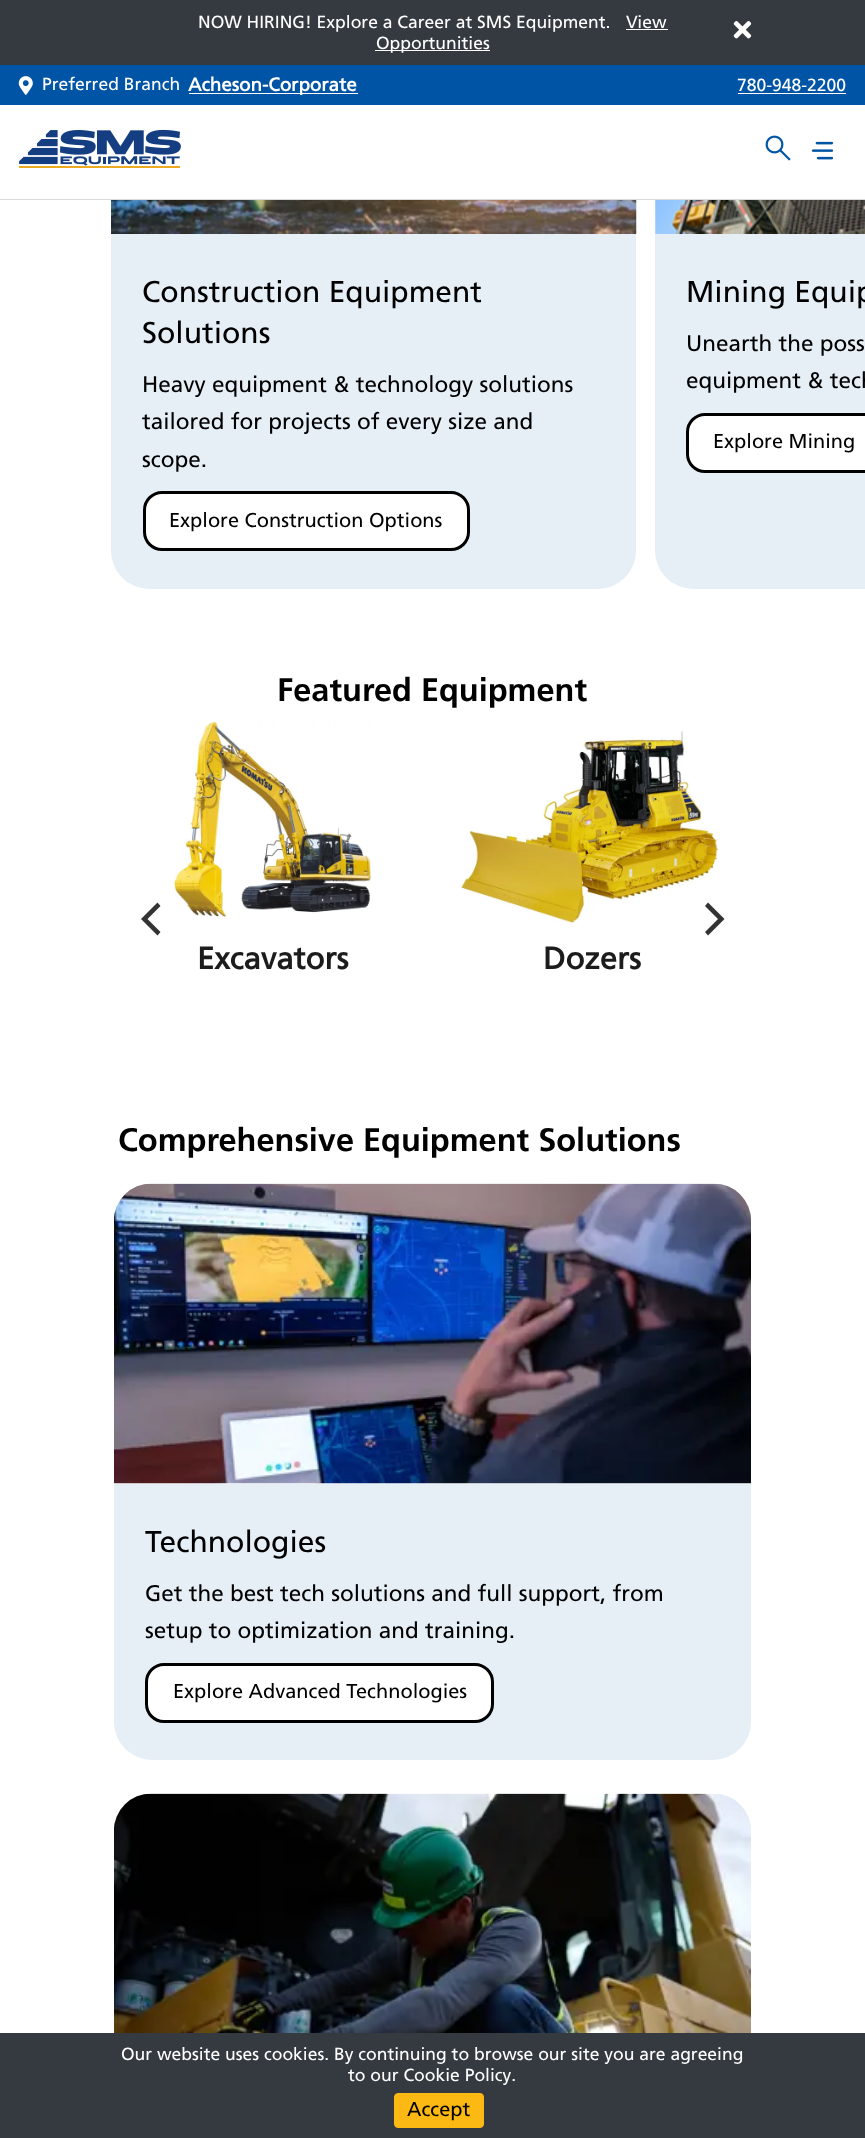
async function draw(canvas) {
  canvas.width = 865
  canvas.height = 2138
  const ctx = canvas.getContext('2d')
  ctx.miterLimit = 4
  ctx.fontKerning = 'normal'
  async function loadImage(src) {
    const img = new Image()
    img.src = src
    await img.decode()
    return img
  }

  ctx.fillStyle = '#fff'
  ctx.fillRect(0, 0, 865, 2138)
  ctx.fillStyle = '#d9d9d9'
  ctx.fillRect(0, 199, 865, 1)
  ctx.fillStyle = '#343a40'
  ctx.fillRect(0, 0, 865, 65)
  ctx.font = '17.5px Frutiger'
  ctx.fillStyle = '#fff'
  ctx.fillText('NOW HIRING! Explore a Career at SMS Equipment.', 198, 28)
  ctx.fillText('View', 626, 28)
  ctx.fillRect(626, 29, 42, 1)
  ctx.drawImage(await loadImage('image0.png'), 733, 21, 19, 18)
  ctx.fillRect(375, 50, 115, 1)
  ctx.fillText('Opportunities', 376, 49)
  ctx.fillStyle = '#0054a5'
  ctx.fillRect(0, 65, 865, 40)
  ctx.drawImage(await loadImage('image1.png'), 18, 76, 15, 19)
  ctx.fillStyle = '#fff'
  ctx.fillText('Preferred Branch', 42, 90)
  ctx.fillRect(189, 93, 169, 1)
  ctx.font = 'bold 18.75px "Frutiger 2"'
  ctx.fillText('Acheson-Corporate', 188, 91)
  ctx.font = '17.5px Frutiger'
  ctx.fillText('780-948-2200', 737, 91)
  ctx.fillRect(738, 93, 108, 1)
  ctx.drawImage(await loadImage('image2.png'), 19, 129, 162, 39)
  ctx.drawImage(await loadImage('image3.png'), 765, 135, 26, 26)
  ctx.drawImage(await loadImage('image4.png'), 811, 141, 23, 19)
  ctx.drawImage(await loadImage('image5.png'), 111, 200, 526, 34)
  ctx.fillStyle = '#e6eef6'
  ctx.beginPath()
  ctx.roundRect(111, 234, 525, 355, [0, 0, 38, 38])
  ctx.fill()
  ctx.font = '30px Frutiger'
  ctx.fillStyle = '#000'
  ctx.fillText('Construction Equipment', 142, 302)
  ctx.fillText('Solutions', 142, 343)
  ctx.font = '22.5px Frutiger'
  ctx.fillText('Heavy equipment & technology solutions', 142, 392)
  ctx.fillText('tailored for projects of every size and', 142, 429)
  ctx.fillText('scope.', 142, 467)
  ctx.fillStyle = '#fff'
  ctx.beginPath()
  ctx.roundRect(144.5, 492.5, 324, 57, 17.5)
  ctx.fill()
  ctx.strokeStyle = '#000'
  ctx.lineWidth = 3
  ctx.stroke()
  ctx.font = '20px Frutiger'
  ctx.fillStyle = '#000'
  ctx.fillText('Explore Construction Options', 169, 527)
  ctx.drawImage(await loadImage('image6.png'), 655, 200, 210, 34)
  ctx.fillStyle = '#e6eef6'
  ctx.beginPath()
  ctx.roundRect(655, 234, 210, 355, [0, 0, 0, 38])
  ctx.fill()
  ctx.font = '30px Frutiger'
  ctx.fillStyle = '#000'
  ctx.fillText('Mining Equip', 686, 302)
  ctx.font = '22.5px Frutiger'
  ctx.fillText('Unearth the poss', 686, 351)
  ctx.fillText('equipment & tech', 686, 388)
  ctx.fillStyle = '#fff'
  ctx.beginPath()
  ctx.roundRect(686, 413, 179, 60, [19, 0, 0, 19])
  ctx.fill()
  ctx.beginPath()
  ctx.roundRect(687.5, 414.5, 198, 57, 17.5)
  ctx.stroke()
  ctx.font = '20px Frutiger'
  ctx.fillStyle = '#000'
  ctx.fillText('Explore Mining', 713, 448)
  ctx.font = 'bold 32.5px Frutiger'
  ctx.fillText('Featured Equipment', 277, 701)
  ctx.fillStyle = '#333'
  ctx.beginPath()
  ctx.moveTo(141, 919)
  ctx.lineTo(157.5, 935.5)
  ctx.lineTo(160.5, 932)
  ctx.lineTo(147.5, 919)
  ctx.lineTo(160.5, 906)
  ctx.lineTo(157.5, 902.5)
  ctx.closePath()
  ctx.fill()
  ctx.drawImage(await loadImage('image8.png'), 459, 731, 260, 193)
  ctx.beginPath()
  ctx.moveTo(724.5, 919)
  ctx.lineTo(708, 902.5)
  ctx.lineTo(705, 906)
  ctx.lineTo(718, 919)
  ctx.lineTo(705, 932)
  ctx.lineTo(708, 935.5)
  ctx.closePath()
  ctx.fill()
  ctx.drawImage(await loadImage('image7.png'), 171, 721, 201, 196)
  ctx.font = 'bold 31px "Frutiger 2"'
  ctx.fillStyle = '#1c1c1c'
  ctx.fillText('Excavators', 197, 969)
  ctx.fillText('Dozers', 543, 969)
  ctx.font = 'bold 32.5px Frutiger'
  ctx.fillStyle = '#000'
  ctx.fillText('Comprehensive Equipment Solutions', 118, 1151)
  ctx.drawImage(await loadImage('image9.png'), 114, 1183, 637, 301)
  ctx.fillStyle = '#e6eef6'
  ctx.beginPath()
  ctx.roundRect(114, 1484, 637, 276, [0, 0, 38, 38])
  ctx.fill()
  ctx.font = '30px Frutiger'
  ctx.fillStyle = '#000'
  ctx.fillText('Technologies', 145, 1552)
  ctx.font = '22.5px Frutiger'
  ctx.fillText('Get the best tech solutions and full support, from', 145, 1601)
  ctx.fillText('setup to optimization and training.', 145, 1638)
  ctx.fillStyle = '#fff'
  ctx.beginPath()
  ctx.roundRect(146.5, 1664.5, 346, 57, 17.5)
  ctx.fill()
  ctx.stroke()
  ctx.font = '20px Frutiger'
  ctx.fillStyle = '#000'
  ctx.fillText('Explore Advanced Technologies', 173, 1698)
  ctx.drawImage(await loadImage('image10.png'), 114, 1793, 637, 240)
  ctx.fillStyle = '#343a40'
  ctx.fillRect(0, 2033, 865, 105)
  ctx.font = '17.5px Frutiger'
  ctx.fillStyle = '#fff'
  ctx.fillText('Our website uses cookies. By continuing to browse our site you are agreeing', 121, 2060)
  ctx.fillText('to our Cookie Policy.', 348, 2081)
  ctx.fillStyle = '#fcb813'
  ctx.beginPath()
  ctx.roundRect(394.5, 2093.5, 89, 34, 3.5)
  ctx.fill()
  ctx.strokeStyle = '#fcb813'
  ctx.lineWidth = 1
  ctx.stroke()
  ctx.font = '20px Frutiger'
  ctx.fillStyle = '#000'
  ctx.fillText('Accept', 407, 2116)
}

draw(document.querySelector('canvas'))
